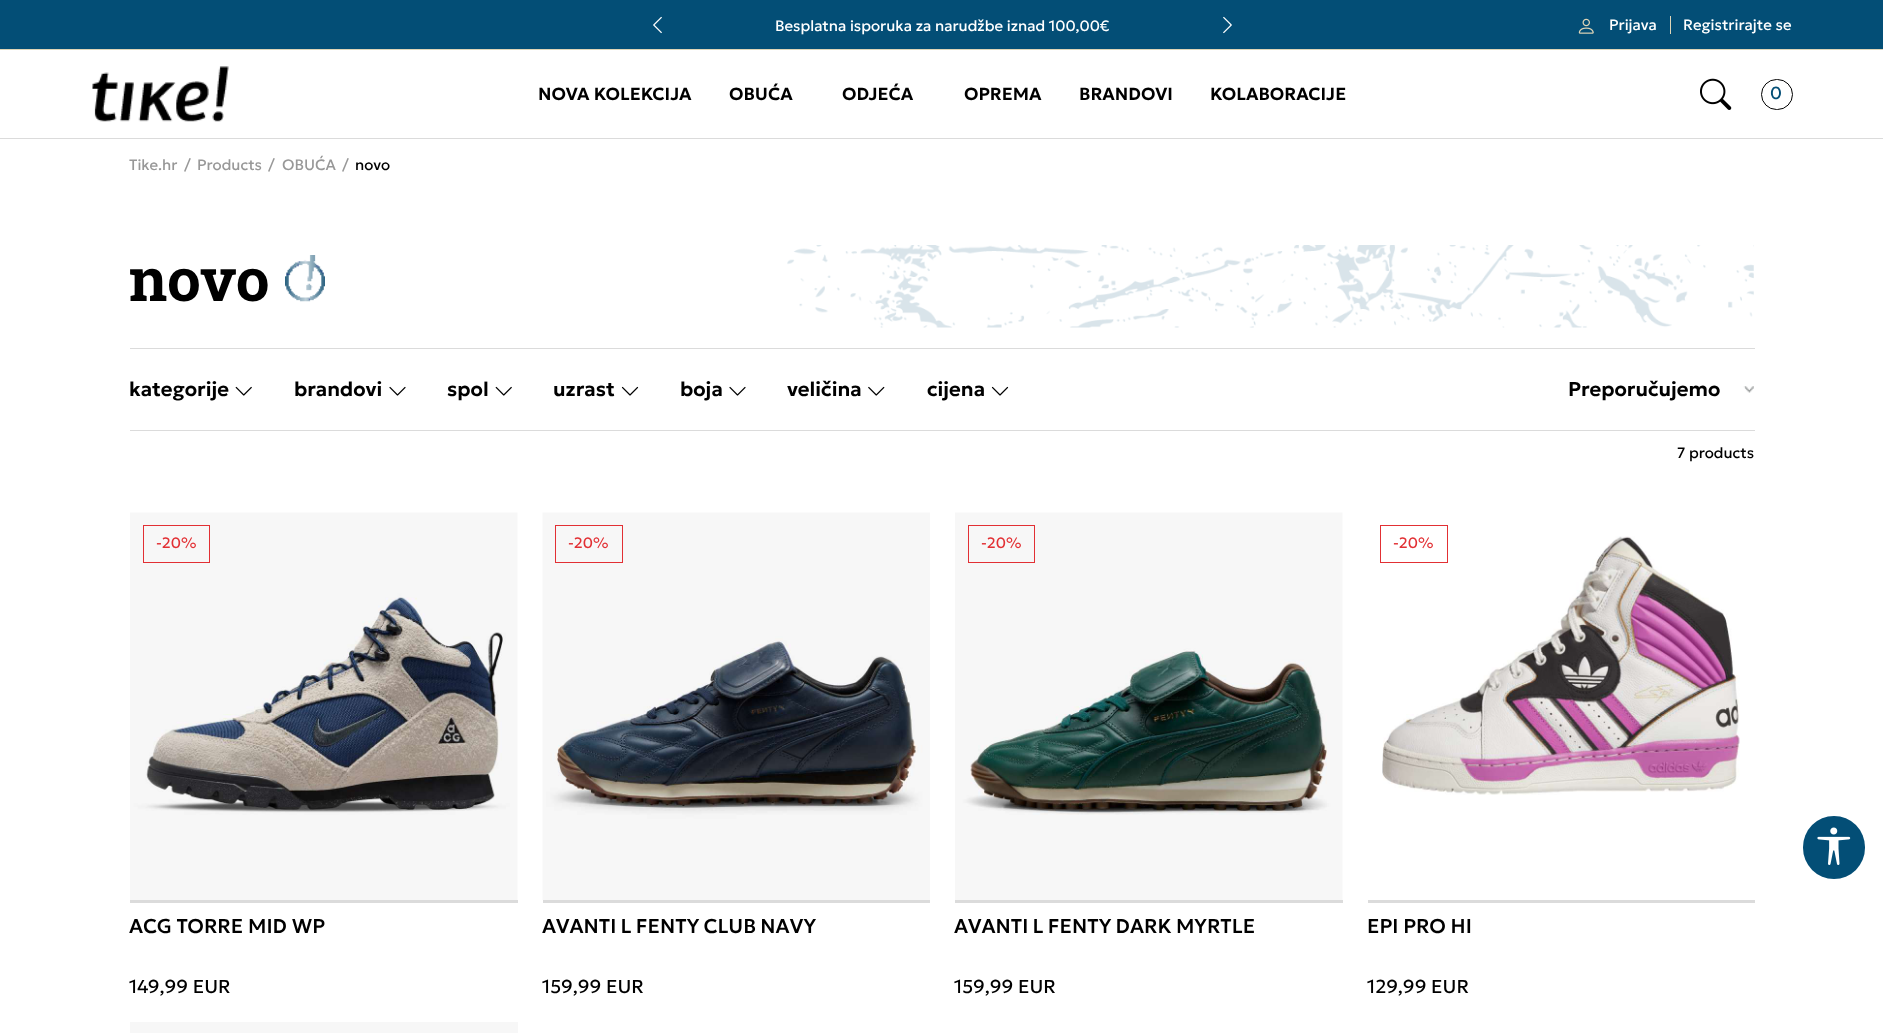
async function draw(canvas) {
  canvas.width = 1883
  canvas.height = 1033
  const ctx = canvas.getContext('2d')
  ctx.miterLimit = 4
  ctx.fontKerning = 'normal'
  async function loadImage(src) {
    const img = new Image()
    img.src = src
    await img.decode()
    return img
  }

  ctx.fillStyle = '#fff'
  ctx.fillRect(0, 0, 1883, 1033)
  ctx.fillStyle = '#dbdbdb'
  ctx.fillRect(0, 138, 1883, 1)
  ctx.fillStyle = '#034e76'
  ctx.fillRect(0, 0, 1883, 49)
  ctx.fillStyle = '#dfd5b7'
  ctx.fillRect(0, 49, 1883, 1)
  ctx.drawImage(await loadImage('image0.png'), 653, 16, 9, 18)
  ctx.drawImage(await loadImage('image1.png'), 1223, 16, 9, 18)
  ctx.font = '15px Geologica'
  ctx.fillStyle = '#fff'
  ctx.fillText('Besplatna isporuka za narudžbe iznad 100,00€', 775, 31)
  ctx.drawImage(await loadImage('image2.png'), 1578, 18, 16, 16)
  ctx.fillStyle = '#dfd5b7'
  ctx.fillRect(1670, 16, 1, 18)
  ctx.fillStyle = '#fff'
  ctx.fillText('Prijava', 1609, 30)
  ctx.fillText('Registrirajte se', 1683, 30)
  ctx.drawImage(await loadImage('image3.png'), 92, 66, 137, 56)
  ctx.font = '600 17.5px Geologica'
  ctx.fillStyle = '#000'
  ctx.fillText('NOVA KOLEKCIJA', 538, 100)
  ctx.fillText('OBUĆA', 729, 100)
  ctx.fillText('ODJEĆA', 842, 100)
  ctx.fillText('OPREMA', 964, 100)
  ctx.fillText('BRANDOVI', 1079, 100)
  ctx.fillText('KOLABORACIJE', 1210, 100)
  ctx.drawImage(await loadImage('image4.png'), 1700, 78, 32, 32)
  ctx.beginPath()
  ctx.roundRect(1761.5, 79.5, 31, 30, 15)
  ctx.strokeStyle = '#000'
  ctx.stroke()
  ctx.font = '17.5px Geologica'
  ctx.fillStyle = '#034e76'
  ctx.fillText('0', 1770, 99)
  ctx.font = '15px Geologica'
  ctx.fillStyle = '#989898'
  ctx.fillText('Tike.hr', 129, 170)
  ctx.fillText('/', 184, 170)
  ctx.fillText('Products', 197, 170)
  ctx.fillText('/', 268, 170)
  ctx.fillText('OBUĆA', 282, 170)
  ctx.fillText('/', 342, 170)
  ctx.fillStyle = '#000'
  ctx.fillText('novo', 355, 170)
  ctx.font = 'bold 60px Roboto Slab'
  ctx.fillText('novo', 129, 301)
  ctx.drawImage(await loadImage('image5.png'), 285, 255, 40, 47)
  ctx.drawImage(await loadImage('image6.png'), 787, 245, 967, 83)
  ctx.fillStyle = '#dbdbdb'
  ctx.fillRect(130, 348, 1625, 1)
  ctx.fillRect(130, 430, 1625, 1)
  ctx.font = '600 20px Geologica'
  ctx.fillStyle = '#000'
  ctx.fillText('kategorije', 129, 396)
  ctx.drawImage(await loadImage('image7.png'), 235, 386, 17, 10)
  ctx.fillText('brandovi', 294, 396)
  ctx.drawImage(await loadImage('image8.png'), 389, 386, 17, 10)
  ctx.fillText('spol', 447, 396)
  ctx.drawImage(await loadImage('image7.png'), 495, 386, 17, 10)
  ctx.fillText('uzrast', 553, 396)
  ctx.drawImage(await loadImage('image9.png'), 621, 386, 18, 10)
  ctx.fillText('boja', 680, 396)
  ctx.drawImage(await loadImage('image8.png'), 729, 386, 17, 10)
  ctx.fillText('veličina', 787, 396)
  ctx.drawImage(await loadImage('image10.png'), 868, 386, 17, 10)
  ctx.fillText('cijena', 927, 396)
  ctx.drawImage(await loadImage('image9.png'), 991, 386, 18, 10)
  ctx.drawImage(await loadImage('image11.png'), 1743, 386, 11, 7)
  ctx.fillText('Preporučujemo', 1568, 396)
  ctx.font = '15px Geologica'
  ctx.fillText('7 products', 1677, 458)
  ctx.fillStyle = '#dbdbdb'
  ctx.fillRect(130, 900, 388, 3)
  ctx.drawImage(await loadImage('image12.png'), 130, 512, 388, 388)
  ctx.strokeStyle = '#e23034'
  ctx.strokeRect(143.5, 525.5, 66, 37)
  ctx.fillStyle = '#e23034'
  ctx.fillText('-20%', 156, 548)
  ctx.font = '500 20px Geologica'
  ctx.fillStyle = '#000'
  ctx.fillText('ACG TORRE MID WP', 129, 933)
  ctx.font = '18.75px Geologica'
  ctx.fillText('149,99 EUR', 129, 993)
  ctx.fillStyle = '#dbdbdb'
  ctx.fillRect(543, 900, 387, 3)
  ctx.drawImage(await loadImage('image13.png'), 542, 512, 388, 388)
  ctx.strokeRect(555.5, 525.5, 67, 37)
  ctx.font = '15px Geologica'
  ctx.fillStyle = '#e23034'
  ctx.fillText('-20%', 568, 548)
  ctx.wordSpacing = '-0.5px'
  ctx.font = '500 20px Geologica'
  ctx.fillStyle = '#000'
  ctx.fillText('AVANTI L FENTY CLUB NAVY', 542, 933)
  ctx.wordSpacing = '0px'
  ctx.font = '18.75px Geologica'
  ctx.fillText('159,99 EUR', 542, 993)
  ctx.fillStyle = '#dbdbdb'
  ctx.fillRect(955, 900, 388, 3)
  ctx.drawImage(await loadImage('image14.png'), 955, 512, 388, 388)
  ctx.strokeRect(968.5, 525.5, 66, 37)
  ctx.font = '15px Geologica'
  ctx.fillStyle = '#e23034'
  ctx.fillText('-20%', 981, 548)
  ctx.wordSpacing = '-0.5px'
  ctx.font = '500 20px Geologica'
  ctx.fillStyle = '#000'
  ctx.fillText('AVANTI L FENTY DARK MYRTLE', 954, 933)
  ctx.wordSpacing = '0px'
  ctx.font = '18.75px Geologica'
  ctx.fillText('159,99 EUR', 954, 993)
  ctx.fillStyle = '#dbdbdb'
  ctx.fillRect(1368, 900, 387, 3)
  ctx.drawImage(await loadImage('image15.png'), 1382, 536, 358, 259)
  ctx.strokeRect(1380.5, 525.5, 67, 37)
  ctx.font = '15px Geologica'
  ctx.fillStyle = '#e23034'
  ctx.fillText('-20%', 1393, 548)
  ctx.font = '500 20px Geologica'
  ctx.fillStyle = '#000'
  ctx.fillText('EPI PRO HI', 1367, 933)
  ctx.font = '18.75px Geologica'
  ctx.fillText('129,99 EUR', 1367, 993)
  ctx.fillStyle = '#f7f7f7'
  ctx.fillRect(130, 1022, 388, 11)
  ctx.fillStyle = '#034e76'
  ctx.beginPath()
  ctx.roundRect(1803, 816, 62, 63, 31)
  ctx.fill()
  ctx.drawImage(await loadImage('image16.png'), 1817, 827, 34, 38)
}

draw(document.querySelector('canvas'))
